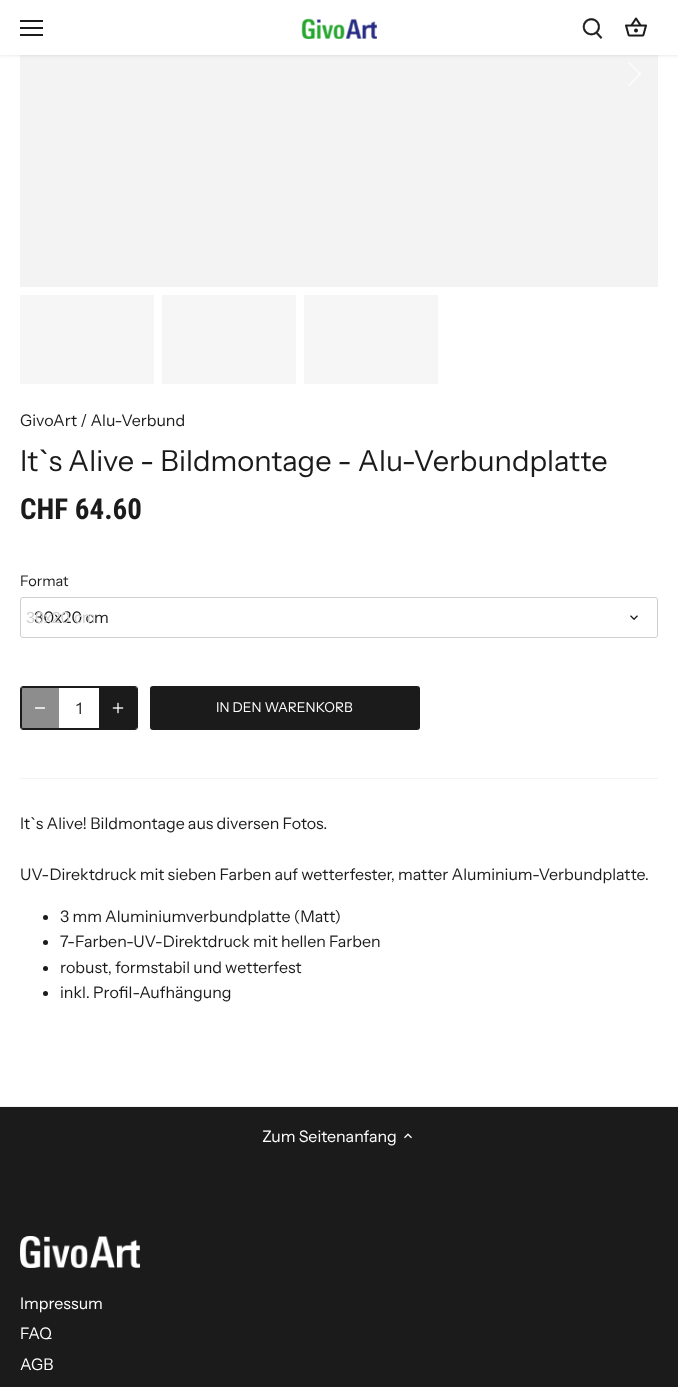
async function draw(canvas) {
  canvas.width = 678
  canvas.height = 1387
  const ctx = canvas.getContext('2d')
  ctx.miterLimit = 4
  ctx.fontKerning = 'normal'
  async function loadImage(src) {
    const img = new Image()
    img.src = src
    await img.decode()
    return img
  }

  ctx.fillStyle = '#1b1b1b'
  ctx.fillRect(0, 0, 678, 1387)
  ctx.fillStyle = '#fff'
  ctx.fillRect(0, 55, 678, 1051)
  ctx.fillStyle = '#f3f3f3'
  ctx.fillRect(20, 55, 638, 232)
  ctx.fillStyle = '#fcfcfc'
  ctx.beginPath()
  ctx.moveTo(629, 61.5)
  ctx.lineTo(628, 62.5)
  ctx.lineTo(639, 74)
  ctx.lineTo(628, 85.5)
  ctx.lineTo(629, 86.5)
  ctx.lineTo(641.5, 74)
  ctx.closePath()
  ctx.fill()
  ctx.fillStyle = '#00000014'
  ctx.filter = 'blur(1.5px)'
  ctx.beginPath()
  ctx.rect(-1, -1, 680, 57)
  ctx.fill()
  ctx.filter = 'none'
  ctx.fillStyle = '#fff'
  ctx.fillRect(0, 0, 678, 55)
  ctx.fillStyle = '#1b1b1b'
  ctx.fillRect(20, 20, 23, 2)
  ctx.fillRect(20, 27, 23, 2)
  ctx.fillRect(20, 34, 23, 2)
  ctx.drawImage(await loadImage('image0.png'), 301, 18, 76, 21)
  ctx.drawImage(await loadImage('image1.png'), 582, 18, 21, 21)
  ctx.drawImage(await loadImage('image2.png'), 625, 17, 22, 20)
  ctx.fillStyle = '#f6f6f6'
  ctx.fillRect(20, 295, 134, 89)
  ctx.fillRect(162, 295, 134, 89)
  ctx.fillRect(304, 295, 134, 89)
  ctx.font = '16px Instrument Sans'
  ctx.fillStyle = '#1b1b1b'
  ctx.fillText('GivoArt / Alu-Verbund', 20, 426)
  ctx.font = '29px Instrument Sans'
  ctx.fillText('It`s Alive - Bildmontage - Alu-Verbundplatte', 20, 471)
  ctx.font = 'bold 29px Roboto Condensed'
  ctx.fillText('CHF 64.60', 20, 519)
  ctx.font = '14.5px Instrument Sans'
  ctx.fillText('Format', 20, 586)
  ctx.beginPath()
  ctx.roundRect(20.5, 597.5, 637, 40, 2.5)
  ctx.strokeStyle = '#cfcfcf'
  ctx.stroke()
  ctx.font = '16px Instrument Sans'
  ctx.fillText('30x20 cm', 34, 623)
  ctx.font = '16px Liberation Sans'
  ctx.fillStyle = '#d1d1d1'
  ctx.fillText('30x20 cm', 26, 623)
  ctx.drawImage(await loadImage('image3.png'), 630, 615, 8, 5)
  ctx.beginPath()
  ctx.roundRect(21.5, 687.5, 115, 41, 1.5)
  ctx.strokeStyle = '#1b1b1b'
  ctx.stroke()
  ctx.beginPath()
  ctx.roundRect(20.5, 686.5, 117, 43, 2.5)
  ctx.stroke()
  ctx.fillStyle = '#1b1b1b80'
  ctx.beginPath()
  ctx.roundRect(21, 687, 38, 42, [3, 0, 0, 3])
  ctx.fill()
  ctx.beginPath()
  ctx.moveTo(35.5, 708)
  ctx.lineTo(44.5, 708)
  ctx.strokeStyle = '#fff'
  ctx.lineWidth = 1.3
  ctx.lineCap = 'round'
  ctx.lineJoin = 'round'
  ctx.stroke()
  ctx.font = '16px Instrument Sans'
  ctx.fillStyle = '#1b1b1b'
  ctx.fillText('1', 76, 714)
  ctx.save()
  ctx.beginPath()
  ctx.roundRect(21, 687, 116, 42, 2)
  ctx.clip()
  ctx.beginPath()
  ctx.roundRect(99, 687, 38, 42, [0, 3, 3, 0])
  ctx.fill()
  ctx.restore()
  ctx.drawImage(await loadImage('image4.png'), 112, 702, 12, 12)
  ctx.beginPath()
  ctx.roundRect(151, 687, 268, 42, 2)
  ctx.fill()
  ctx.strokeStyle = '#1b1b1b'
  ctx.lineWidth = 2
  ctx.lineJoin = 'miter'
  ctx.stroke()
  ctx.letterSpacing = '0.1px'
  ctx.font = '13.6px Instrument Sans'
  ctx.fillStyle = '#fff'
  ctx.fillText('IN DEN WARENKORB', 216, 712)
  ctx.beginPath()
  ctx.moveTo(289, 712)
  ctx.bezierCurveTo(287, 714.5, 283, 714.5, 281, 712)
  ctx.lineCap = 'butt'
  ctx.stroke()
  ctx.fillStyle = '#f4f4f4'
  ctx.fillRect(20, 778, 638, 1)
  ctx.letterSpacing = '0px'
  ctx.font = '16px Instrument Sans'
  ctx.fillStyle = '#1b1b1b'
  ctx.fillText('It`s Alive! Bildmontage aus diversen Fotos.', 20, 829)
  ctx.fillText('UV-Direktdruck mit sieben Farben auf wetterfester, matter Aluminium-Verbundplatte.', 20, 880)
  ctx.beginPath()
  ctx.arc(45.5, 917.5, 2.5, 0, 2 * Math.PI)
  ctx.fill()
  ctx.fillText('3 mm Aluminiumverbundplatte (Matt)', 60, 922)
  ctx.beginPath()
  ctx.arc(45.5, 942.5, 2.5, 0, 2 * Math.PI)
  ctx.fill()
  ctx.fillText('7-Farben-UV-Direktdruck mit hellen Farben', 60, 947)
  ctx.beginPath()
  ctx.arc(45.5, 968.5, 2.5, 0, 2 * Math.PI)
  ctx.fill()
  ctx.fillText('robust, formstabil und wetterfest', 60, 973)
  ctx.beginPath()
  ctx.arc(45.5, 993.5, 2.5, 0, 2 * Math.PI)
  ctx.fill()
  ctx.fillText('inkl. Profil-Aufhängung', 60, 998)
  ctx.fillStyle = '#f4f4f4'
  ctx.fillRect(0, 1106, 678, 1)
  ctx.fillStyle = '#fff'
  ctx.fillText('Zum Seitenanfang', 262, 1142)
  ctx.drawImage(await loadImage('image5.png'), 404, 1133, 8, 6)
  ctx.drawImage(await loadImage('image6.png'), 20, 1236, 120, 32)
  ctx.fillText('Impressum', 20, 1309)
  ctx.fillText('FAQ', 20, 1339)
  ctx.fillText('AGB', 20, 1370)
}

draw(document.querySelector('canvas'))
